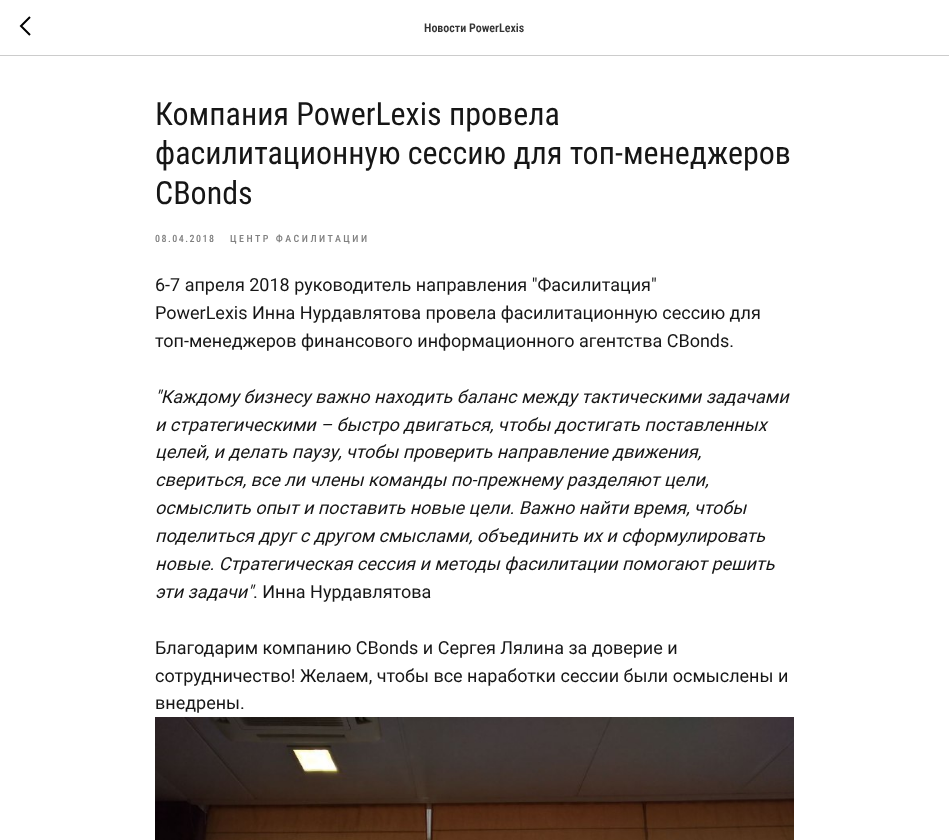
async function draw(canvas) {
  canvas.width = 949
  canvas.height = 840
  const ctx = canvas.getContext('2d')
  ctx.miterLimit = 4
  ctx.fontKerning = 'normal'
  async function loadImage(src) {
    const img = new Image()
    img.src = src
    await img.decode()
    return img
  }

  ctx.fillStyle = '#fff'
  ctx.fillRect(0, 0, 949, 840)
  ctx.fillStyle = '#ccc'
  ctx.fillRect(0, 55, 949, 1)
  ctx.beginPath()
  ctx.moveTo(30, 35)
  ctx.lineTo(21, 26)
  ctx.lineTo(30, 17)
  ctx.strokeStyle = '#000'
  ctx.lineWidth = 2
  ctx.stroke()
  ctx.font = '600 12px Roboto Condensed'
  ctx.fillStyle = '#333'
  ctx.fillText('Новости PowerLexis', 424, 32)
  ctx.font = '32px Roboto Condensed'
  ctx.fillStyle = '#161616'
  ctx.fillText('Компания PowerLexis провела', 155, 125)
  ctx.fillText('фасилитационную сессию для топ-менеджеров', 155, 164)
  ctx.fillText('CBonds', 155, 204)
  ctx.letterSpacing = '1.5px'
  ctx.font = '500 10px Roboto Condensed'
  ctx.fillStyle = '#808080'
  ctx.fillText('08.04.2018', 155, 242)
  ctx.letterSpacing = '2.5px'
  ctx.fillText('ЦЕНТР ФАСИЛИТАЦИИ', 230, 242)
  ctx.letterSpacing = '0px'
  ctx.font = '18px Roboto'
  ctx.fillStyle = '#161616'
  ctx.fillText('6-7 апреля 2018 руководитель направления "Фасилитация"', 155, 291)
  ctx.fillText('PowerLexis Инна Нурдавлятова провела фасилитационную сессию для', 155, 319)
  ctx.fillText('топ-менеджеров финансового информационного агентства CBonds.', 155, 347)
  ctx.font = 'italic 18px Roboto'
  ctx.fillText('"Каждому бизнесу важно находить баланс между тактическими задачами', 155, 403)
  ctx.fillText('и стратегическими – быстро двигаться, чтобы достигать поставленных', 155, 431)
  ctx.fillText('целей, и делать паузу, чтобы проверить направление движения,', 155, 458)
  ctx.fillText('свериться, все ли члены команды по-прежнему разделяют цели,', 155, 486)
  ctx.fillText('осмыслить опыт и поставить новые цели. Важно найти время, чтобы', 155, 514)
  ctx.fillText('поделиться друг с другом смыслами, объединить их и сформулировать', 155, 542)
  ctx.fillText('новые. Стратегическая сессия и методы фасилитации помогают решить', 155, 570)
  ctx.fillText('эти задачи"', 155, 598)
  ctx.font = '18px Roboto'
  ctx.fillText('. Инна Нурдавлятова', 253, 598)
  ctx.fillText('Благодарим компанию CBonds и Сергея Лялина за доверие и', 155, 654)
  ctx.fillText('сотрудничество! Желаем, чтобы все наработки сессии были осмыслены и', 155, 682)
  ctx.fillText('внедрены.', 155, 709)
  ctx.drawImage(await loadImage('image0.png'), 155, 717, 639, 123)
}

draw(document.querySelector('canvas'))
